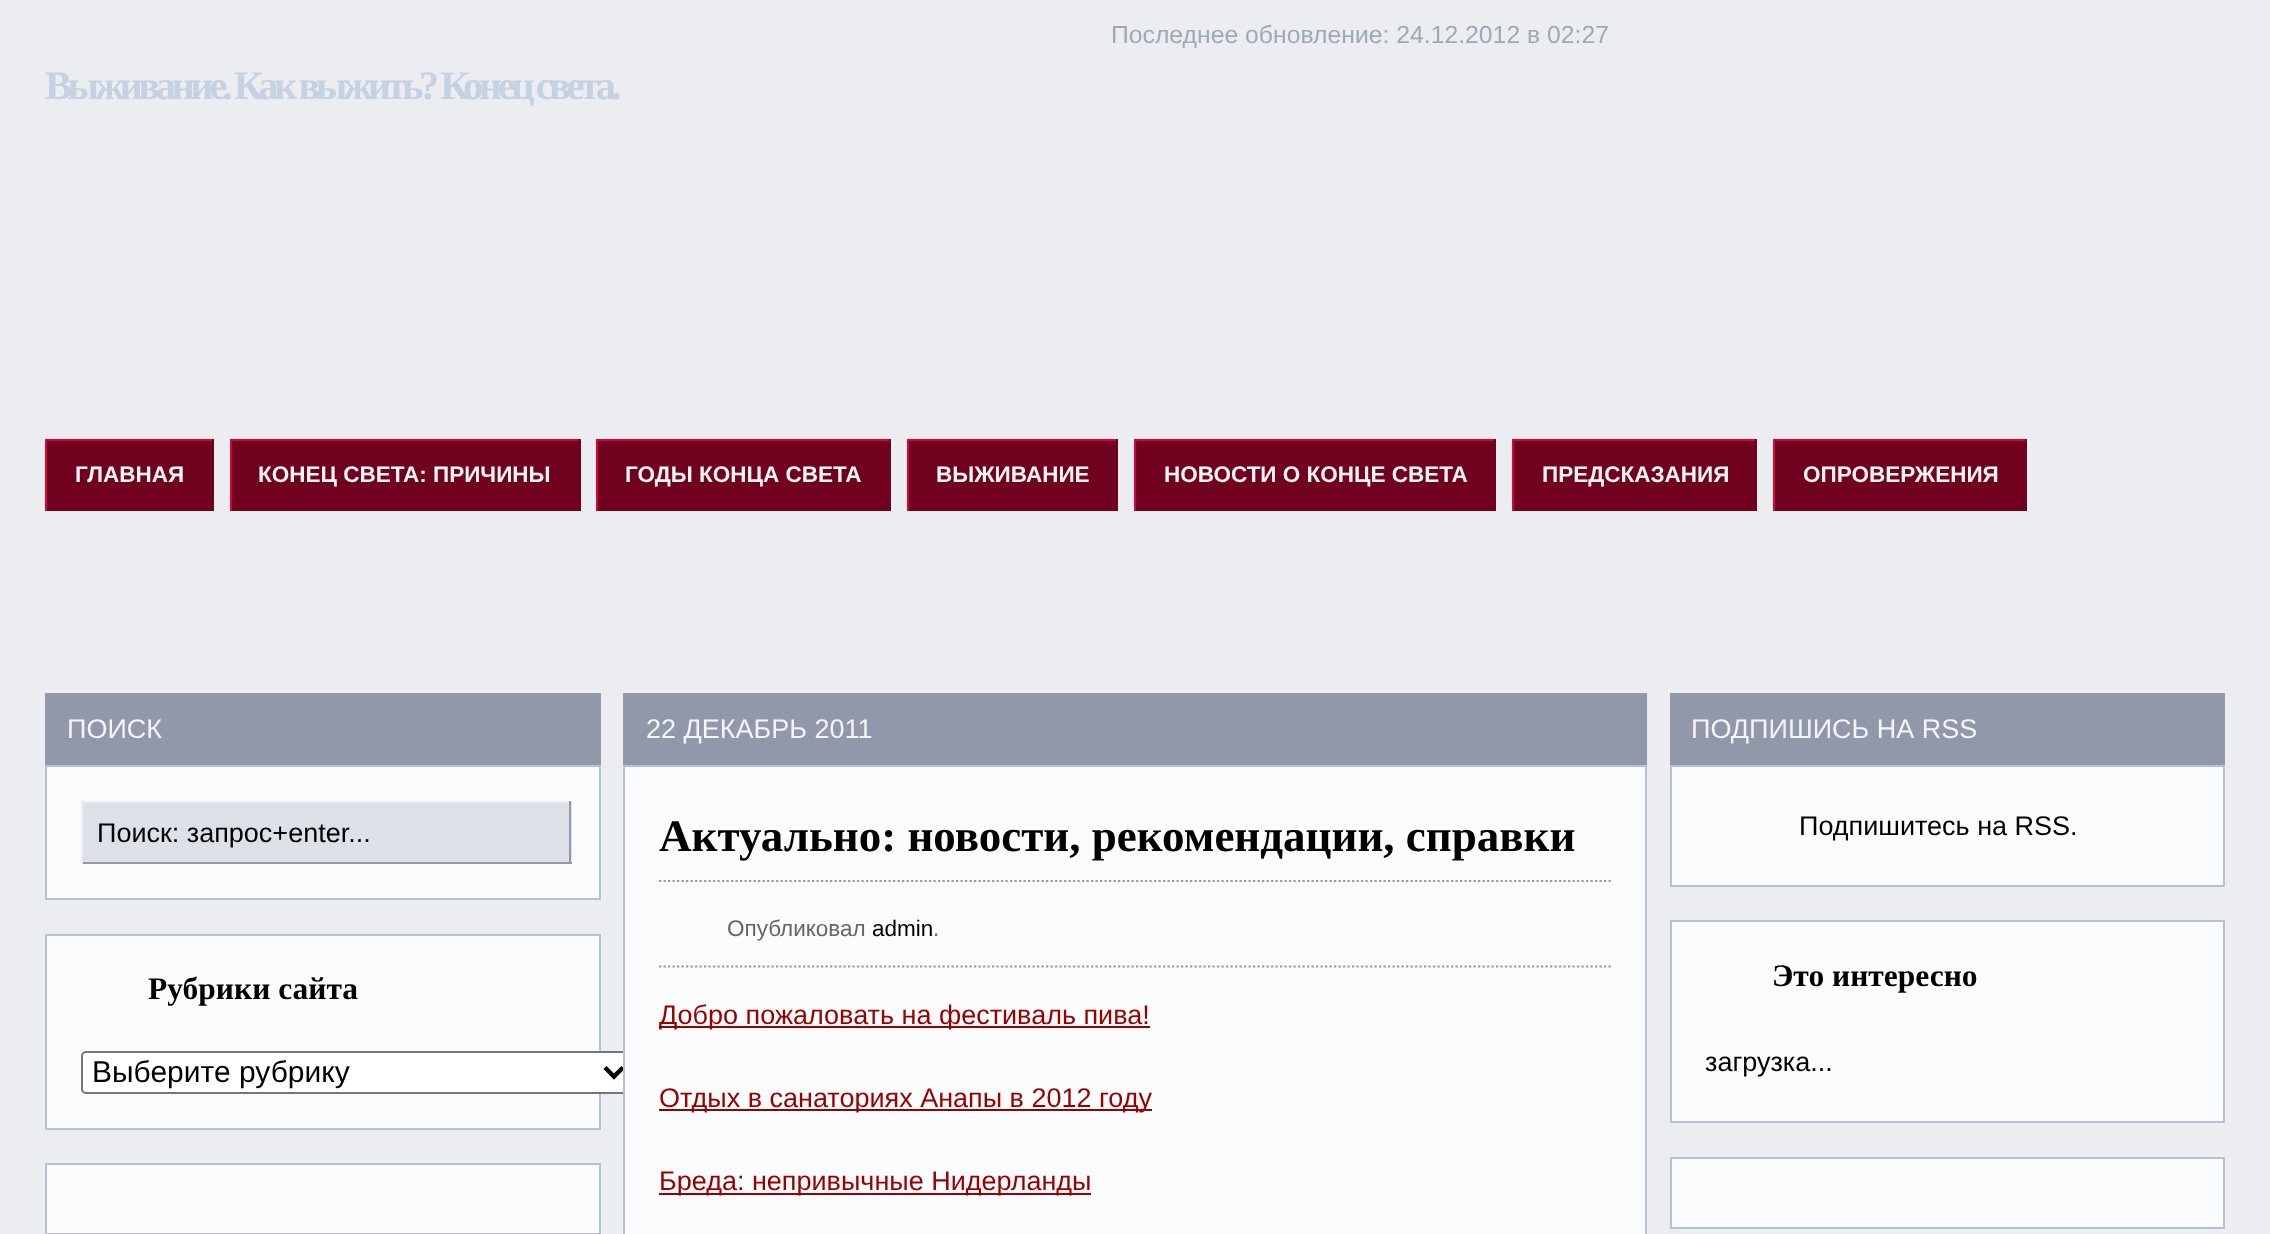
async function draw(canvas) {
  canvas.width = 2270
  canvas.height = 1234
  const ctx = canvas.getContext('2d')
  ctx.miterLimit = 4
  ctx.fontKerning = 'normal'

  ctx.fillStyle = '#ebedf0'
  ctx.fillRect(0, 0, 2270, 1234)
  ctx.font = '24.75px Liberation Sans'
  ctx.fillStyle = '#9baab5'
  ctx.fillText('Последнее обновление: 24.12.2012 в 02:27', 1111, 43)
  ctx.letterSpacing = '-4.5px'
  ctx.font = 'bold 40.5px Liberation Serif'
  ctx.fillStyle = '#c4d2e2'
  ctx.fillText('Выживание. Как выжить? Конец света.', 45, 99)
  ctx.fillStyle = '#71021f'
  ctx.fillRect(47, 441, 165, 70)
  ctx.fillStyle = '#db0239'
  ctx.fillRect(45, 439, 169, 2)
  ctx.fillStyle = '#71021f'
  ctx.fillRect(212, 439, 2, 72)
  ctx.fillStyle = '#db0239'
  ctx.fillRect(45, 439, 2, 72)
  ctx.letterSpacing = '0px'
  ctx.font = 'bold 22.5px Liberation Sans'
  ctx.fillStyle = '#f4f4f4'
  ctx.fillText('ГЛАВНАЯ', 75, 482)
  ctx.fillStyle = '#71021f'
  ctx.fillRect(232, 441, 349, 70)
  ctx.fillStyle = '#db0239'
  ctx.fillRect(230, 439, 351, 2)
  ctx.fillStyle = '#71021f'
  ctx.fillRect(578, 439, 2, 2)
  ctx.fillStyle = '#db0239'
  ctx.fillRect(230, 439, 2, 72)
  ctx.fillStyle = '#f4f4f4'
  ctx.fillText('КОНЕЦ СВЕТА: ПРИЧИНЫ', 258, 482)
  ctx.fillStyle = '#71021f'
  ctx.fillRect(598, 441, 291, 70)
  ctx.fillStyle = '#db0239'
  ctx.fillRect(596, 439, 295, 2)
  ctx.fillStyle = '#71021f'
  ctx.fillRect(889, 439, 2, 72)
  ctx.fillStyle = '#db0239'
  ctx.fillRect(596, 439, 2, 72)
  ctx.fillStyle = '#f4f4f4'
  ctx.fillText('ГОДЫ КОНЦА СВЕТА', 625, 482)
  ctx.fillStyle = '#71021f'
  ctx.fillRect(909, 441, 207, 70)
  ctx.fillStyle = '#db0239'
  ctx.fillRect(907, 439, 211, 2)
  ctx.fillStyle = '#71021f'
  ctx.fillRect(1116, 439, 2, 72)
  ctx.fillStyle = '#db0239'
  ctx.fillRect(907, 439, 2, 72)
  ctx.fillStyle = '#f4f4f4'
  ctx.fillText('ВЫЖИВАНИЕ', 936, 482)
  ctx.fillStyle = '#71021f'
  ctx.fillRect(1136, 441, 358, 70)
  ctx.fillStyle = '#db0239'
  ctx.fillRect(1134, 439, 362, 2)
  ctx.fillStyle = '#71021f'
  ctx.fillRect(1494, 439, 2, 72)
  ctx.fillStyle = '#db0239'
  ctx.fillRect(1134, 439, 2, 72)
  ctx.fillStyle = '#f4f4f4'
  ctx.fillText('НОВОСТИ О КОНЦЕ СВЕТА', 1164, 482)
  ctx.fillStyle = '#71021f'
  ctx.fillRect(1514, 441, 241, 70)
  ctx.fillStyle = '#db0239'
  ctx.fillRect(1512, 439, 245, 2)
  ctx.fillStyle = '#71021f'
  ctx.fillRect(1755, 439, 2, 72)
  ctx.fillStyle = '#db0239'
  ctx.fillRect(1512, 439, 2, 72)
  ctx.fillStyle = '#f4f4f4'
  ctx.fillText('ПРЕДСКАЗАНИЯ', 1542, 482)
  ctx.fillStyle = '#71021f'
  ctx.fillRect(1775, 441, 250, 70)
  ctx.fillStyle = '#db0239'
  ctx.fillRect(1773, 439, 254, 2)
  ctx.fillStyle = '#71021f'
  ctx.fillRect(2025, 439, 2, 72)
  ctx.fillStyle = '#db0239'
  ctx.fillRect(1773, 439, 2, 72)
  ctx.fillStyle = '#f4f4f4'
  ctx.fillText('ОПРОВЕРЖЕНИЯ', 1803, 482)
  ctx.fillStyle = '#9098aa'
  ctx.fillRect(45, 693, 556, 72)
  ctx.font = '27px Liberation Sans'
  ctx.fillStyle = '#f4f4f4'
  ctx.fillText('ПОИСК', 67, 738)
  ctx.fillStyle = '#fafbfc'
  ctx.beginPath()
  ctx.rect(46, 766, 554, 133)
  ctx.fill()
  ctx.strokeStyle = '#b1c2d9'
  ctx.lineWidth = 2
  ctx.stroke()
  ctx.fillStyle = '#dce0e7'
  ctx.fillRect(83, 803, 489, 59)
  ctx.fillStyle = '#ebedf0'
  ctx.fillRect(81, 801, 491, 2)
  ctx.fillStyle = '#9098aa'
  ctx.fillRect(569, 801, 2, 63)
  ctx.fillRect(81, 862, 491, 2)
  ctx.fillStyle = '#ebedf0'
  ctx.fillRect(81, 801, 2, 63)
  ctx.fillStyle = '#000'
  ctx.fillText('Поиск: запрос+enter...', 97, 842)
  ctx.fillStyle = '#fafbfc'
  ctx.beginPath()
  ctx.rect(46, 935, 554, 194)
  ctx.fill()
  ctx.stroke()
  ctx.font = 'bold 31.5px Liberation Serif'
  ctx.fillStyle = '#000'
  ctx.fillText('Рубрики сайта', 148, 999)
  ctx.fillStyle = '#fff'
  ctx.beginPath()
  ctx.roundRect(82, 1052, 552, 41, 4)
  ctx.fill()
  ctx.strokeStyle = '#767676'
  ctx.stroke()
  ctx.beginPath()
  ctx.moveTo(605, 1067.5)
  ctx.lineTo(614, 1076.5)
  ctx.lineTo(623, 1067.5)
  ctx.strokeStyle = '#000'
  ctx.lineWidth = 4.5
  ctx.stroke()
  ctx.font = '30px Liberation Sans'
  ctx.fillStyle = '#000'
  ctx.fillText('Выберите рубрику', 92, 1082)
  ctx.fillStyle = '#fafbfc'
  ctx.beginPath()
  ctx.rect(46, 1164, 554, 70)
  ctx.fill()
  ctx.strokeStyle = '#b1c2d9'
  ctx.lineWidth = 2
  ctx.stroke()
  ctx.fillStyle = '#9098aa'
  ctx.fillRect(623, 693, 1024, 72)
  ctx.font = '27px Liberation Sans'
  ctx.fillStyle = '#f4f4f4'
  ctx.fillText('22 ДЕКАБРЬ 2011', 646, 738)
  ctx.fillStyle = '#fafbfc'
  ctx.beginPath()
  ctx.rect(624, 766, 1022, 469)
  ctx.fill()
  ctx.stroke()
  ctx.beginPath()
  ctx.moveTo(659, 881)
  ctx.lineTo(1611, 881)
  ctx.strokeStyle = '#999'
  ctx.lineWidth = 2.2
  ctx.setLineDash([2.25, 2.25])
  ctx.stroke()
  ctx.font = 'bold 45px Liberation Serif'
  ctx.fillStyle = '#000'
  ctx.fillText('Актуально: новости, рекомендации, справки', 659, 851)
  ctx.beginPath()
  ctx.moveTo(659, 966.5)
  ctx.lineTo(1611, 966.5)
  ctx.stroke()
  ctx.font = '22.5px Liberation Sans'
  ctx.fillStyle = '#666'
  ctx.fillText('Опубликовал', 727, 936)
  ctx.fillStyle = '#000'
  ctx.fillText('admin', 872, 936)
  ctx.fillStyle = '#666'
  ctx.fillText('.', 933, 936)
  ctx.fillStyle = '#900'
  ctx.fillRect(659, 1026, 491, 2)
  ctx.font = '27px Liberation Sans'
  ctx.fillText('Добро пожаловать на фестиваль пива!', 659, 1024)
  ctx.fillRect(659, 1109, 493, 2)
  ctx.fillText('Отдых в санаториях Анапы в 2012 году', 659, 1107)
  ctx.fillRect(659, 1193, 432, 2)
  ctx.fillText('Бреда: непривычные Нидерланды', 659, 1190)
  ctx.fillStyle = '#9098aa'
  ctx.fillRect(1670, 693, 555, 72)
  ctx.fillStyle = '#f4f4f4'
  ctx.fillText('ПОДПИШИСЬ НА RSS', 1691, 738)
  ctx.fillStyle = '#fafbfc'
  ctx.beginPath()
  ctx.rect(1671, 766, 553, 120)
  ctx.fill()
  ctx.strokeStyle = '#b1c2d9'
  ctx.lineWidth = 2
  ctx.setLineDash([])
  ctx.stroke()
  ctx.fillStyle = '#000'
  ctx.fillText('Подпишитесь на RSS.', 1799, 835)
  ctx.fillStyle = '#fafbfc'
  ctx.beginPath()
  ctx.rect(1671, 921, 553, 201)
  ctx.fill()
  ctx.stroke()
  ctx.font = 'bold 31.5px Liberation Serif'
  ctx.fillStyle = '#000'
  ctx.fillText('Это интересно', 1772, 986)
  ctx.font = '27px Liberation Sans'
  ctx.fillText('загрузка...', 1705, 1071)
  ctx.fillStyle = '#fafbfc'
  ctx.beginPath()
  ctx.rect(1671, 1158, 553, 70)
  ctx.fill()
  ctx.stroke()
}

draw(document.querySelector('canvas'))
